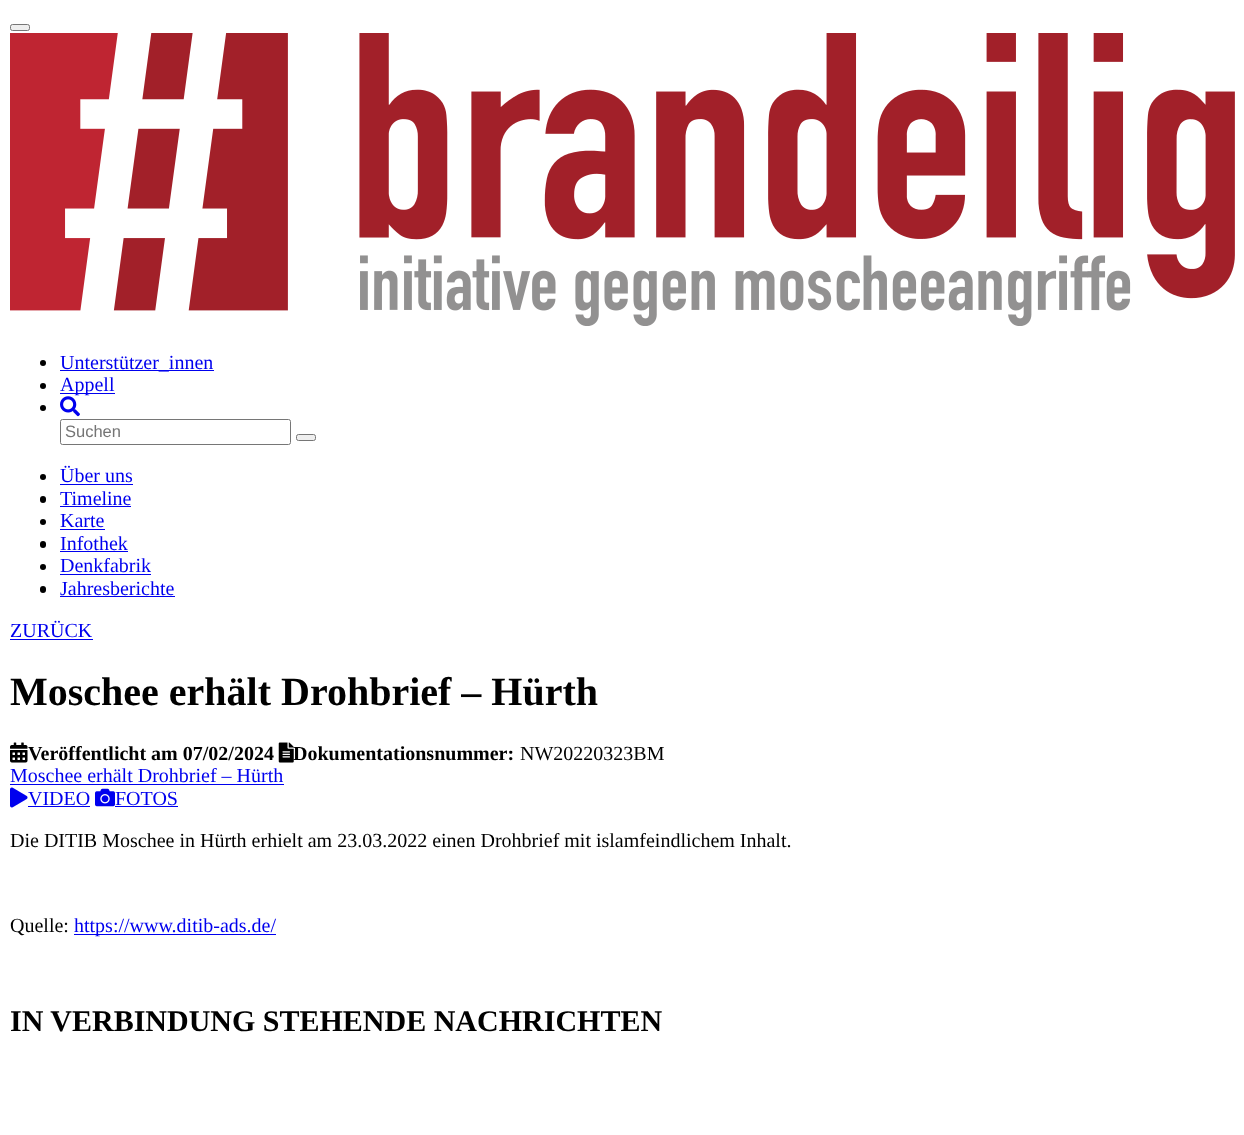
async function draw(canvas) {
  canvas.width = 1244
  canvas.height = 1135
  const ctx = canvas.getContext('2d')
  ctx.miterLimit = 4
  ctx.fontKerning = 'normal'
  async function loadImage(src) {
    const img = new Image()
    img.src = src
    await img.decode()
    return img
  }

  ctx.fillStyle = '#fff'
  ctx.fillRect(0, 0, 1244, 1135)
  ctx.fillStyle = '#efefef'
  ctx.beginPath()
  ctx.roundRect(10.5, 24.5, 19, 6, 2)
  ctx.fill()
  ctx.strokeStyle = '#767676'
  ctx.stroke()
  ctx.drawImage(await loadImage('image0.png'), 10, 33, 1225, 293)
  ctx.fillStyle = '#000'
  ctx.beginPath()
  ctx.arc(43, 363, 3, 0, 2 * Math.PI)
  ctx.fill()
  ctx.fillStyle = '#00e'
  ctx.fillRect(60, 370, 154, 1)
  ctx.font = '20px Liberation Serif'
  ctx.fillText('Unterstützer_innen', 60, 369)
  ctx.fillStyle = '#000'
  ctx.beginPath()
  ctx.arc(43, 386, 3, 0, 2 * Math.PI)
  ctx.fill()
  ctx.fillStyle = '#00e'
  ctx.fillRect(60, 393, 55, 1)
  ctx.fillText('Appell', 60, 391)
  ctx.fillStyle = '#000'
  ctx.beginPath()
  ctx.arc(43, 408, 3, 0, 2 * Math.PI)
  ctx.fill()
  ctx.drawImage(await loadImage('image1.png'), 60, 396, 20, 21)
  ctx.beginPath()
  ctx.roundRect(60.5, 419.5, 230, 25, 2)
  ctx.stroke()
  ctx.font = '16.5px Liberation Sans'
  ctx.fillStyle = '#757575'
  ctx.fillText('Suchen', 65, 437)
  ctx.fillStyle = '#efefef'
  ctx.beginPath()
  ctx.roundRect(296.5, 434.5, 19, 6, 2)
  ctx.fill()
  ctx.stroke()
  ctx.fillStyle = '#000'
  ctx.beginPath()
  ctx.arc(43, 477, 3, 0, 2 * Math.PI)
  ctx.fill()
  ctx.font = '20px Liberation Serif'
  ctx.fillStyle = '#00e'
  ctx.fillText('Über uns', 60, 482)
  ctx.fillRect(60, 484, 73, 1)
  ctx.fillStyle = '#000'
  ctx.beginPath()
  ctx.roundRect(40, 496, 6, 7, 3)
  ctx.fill()
  ctx.fillStyle = '#00e'
  ctx.fillText('Timeline', 60, 505)
  ctx.fillRect(60, 506, 71, 1)
  ctx.fillStyle = '#000'
  ctx.beginPath()
  ctx.arc(43, 522, 3, 0, 2 * Math.PI)
  ctx.fill()
  ctx.fillStyle = '#00e'
  ctx.fillText('Karte', 60, 527)
  ctx.fillRect(60, 529, 45, 1)
  ctx.fillStyle = '#000'
  ctx.beginPath()
  ctx.roundRect(40, 541, 6, 7, 3)
  ctx.fill()
  ctx.fillStyle = '#00e'
  ctx.fillText('Infothek', 60, 550)
  ctx.fillRect(60, 551, 68, 1)
  ctx.fillStyle = '#000'
  ctx.beginPath()
  ctx.arc(43, 567, 3, 0, 2 * Math.PI)
  ctx.fill()
  ctx.fillStyle = '#00e'
  ctx.fillText('Denkfabrik', 60, 572)
  ctx.fillRect(60, 574, 91, 1)
  ctx.fillStyle = '#000'
  ctx.beginPath()
  ctx.roundRect(40, 586, 6, 7, 3)
  ctx.fill()
  ctx.fillStyle = '#00e'
  ctx.fillText('Jahresberichte', 60, 595)
  ctx.fillRect(60, 596, 115, 1)
  ctx.fillText('ZURÜCK', 10, 637)
  ctx.fillRect(10, 639, 83, 1)
  ctx.font = 'bold 40px Liberation Serif'
  ctx.fillStyle = '#000'
  ctx.fillText('Moschee erhält Drohbrief – Hürth', 10, 705)
  ctx.drawImage(await loadImage('image2.png'), 10, 742, 18, 21)
  ctx.font = 'bold 20px Liberation Serif'
  ctx.fillText('Veröffentlicht am 07/02/2024', 28, 760)
  ctx.drawImage(await loadImage('image3.png'), 278, 742, 16, 21)
  ctx.fillText('Dokumentationsnummer:', 293, 760)
  ctx.font = '20px Liberation Serif'
  ctx.fillText('NW20220323BM', 520, 760)
  ctx.fillStyle = '#00e'
  ctx.fillText('Moschee erhält Drohbrief – Hürth', 10, 782)
  ctx.fillRect(10, 784, 274, 1)
  ctx.drawImage(await loadImage('image4.png'), 10, 787, 18, 21)
  ctx.fillText('VIDEO', 28, 805)
  ctx.fillRect(28, 806, 62, 1)
  ctx.drawImage(await loadImage('image5.png'), 95, 788, 20, 19)
  ctx.fillText('FOTOS', 115, 805)
  ctx.fillRect(115, 806, 63, 1)
  ctx.fillStyle = '#000'
  ctx.fillText('Die DITIB Moschee in Hürth erhielt am 23.03.2022 einen Drohbrief mit islamfeindlichem Inhalt.', 10, 847)
  ctx.fillText('Quelle:', 10, 932)
  ctx.fillStyle = '#00e'
  ctx.fillRect(74, 934, 202, 1)
  ctx.fillText('https://www.ditib-ads.de/', 74, 932)
  ctx.font = 'bold 30px Liberation Serif'
  ctx.fillStyle = '#000'
  ctx.fillText('IN VERBINDUNG STEHENDE NACHRICHTEN', 10, 1031)
}

draw(document.querySelector('canvas'))
